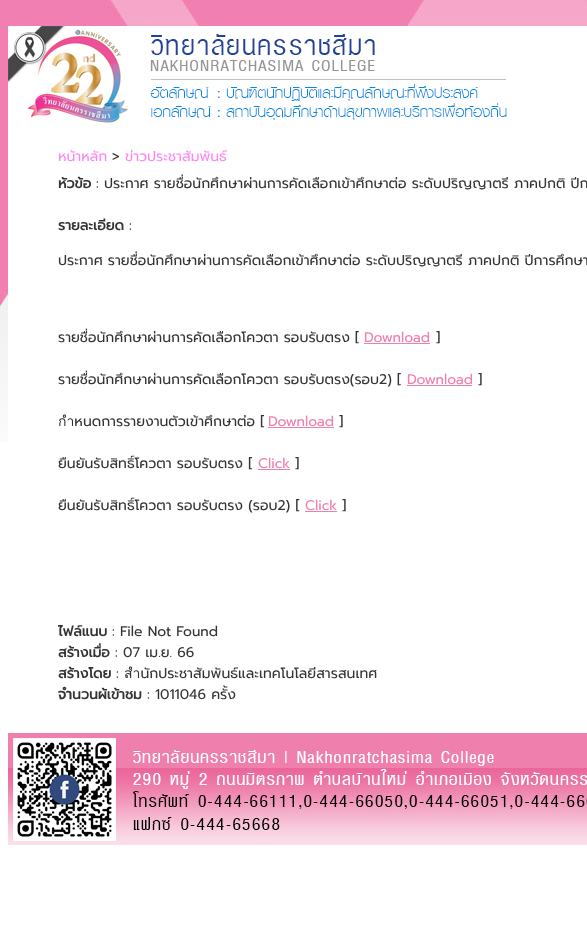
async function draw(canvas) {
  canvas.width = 587
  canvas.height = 929
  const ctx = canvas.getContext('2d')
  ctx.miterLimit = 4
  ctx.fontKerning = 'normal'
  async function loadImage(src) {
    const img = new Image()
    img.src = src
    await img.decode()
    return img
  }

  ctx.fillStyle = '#fff'
  ctx.fillRect(0, 0, 587, 929)
  ctx.drawImage(await loadImage('image0.png'), 0, 0, 587, 442)
  ctx.fillRect(8, 26, 579, 416)
  ctx.drawImage(await loadImage('image1.png'), 8, 26, 499, 97)
  ctx.font = '14px Prompt'
  ctx.fillStyle = '#fd86f3'
  ctx.fillText('หน้าหลัก', 58, 161)
  ctx.fillStyle = '#333'
  ctx.fillText('>', 112, 161)
  ctx.fillStyle = '#fd86f3'
  ctx.fillText('ข่าวประชาสัมพันธ์', 125, 161)
  ctx.font = 'bold 14px Prompt'
  ctx.fillStyle = '#333'
  ctx.fillText('หัวข้อ', 58, 188)
  ctx.font = '14px Prompt'
  ctx.fillText(': ประกาศ รายชื่อนักศึกษาผ่านการคัดเลือกเข้าศึกษาต่อ ระดับปริญญาตรี ภาคปกติ ปีก', 96, 188)
  ctx.font = 'bold 14px Prompt'
  ctx.fillText('รายละเอียด', 58, 230)
  ctx.font = '14px Prompt'
  ctx.fillText(':', 129, 230)
  ctx.fillText('ประกาศ รายชื่อนักศึกษาผ่านการคัดเลือกเข้าศึกษาต่อ ระดับปริญญาตรี ภาคปกติ ปีการศึกษา', 58, 265)
  ctx.fillText('รายชื่อนักศึกษาผ่านการคัดเลือกโควตา รอบรับตรง [', 58, 342)
  ctx.fillStyle = '#ef7fad'
  ctx.fillText('Download', 364, 342)
  ctx.fillRect(364, 343, 66, 1)
  ctx.fillStyle = '#333'
  ctx.fillText(']', 436, 342)
  ctx.fillText('รายชื่อนักศึกษาผ่านการคัดเลือกโควตา รอบรับตรง(รอบ2) [', 58, 384)
  ctx.fillStyle = '#ef7fad'
  ctx.fillText('Download', 407, 384)
  ctx.fillRect(407, 385, 65, 1)
  ctx.fillStyle = '#333'
  ctx.fillText(']', 478, 384)
  ctx.fillText('กำหนดการรายงานตัวเข้าศึกษาต่อ [', 58, 426)
  ctx.fillStyle = '#ef7fad'
  ctx.fillText('Download', 268, 426)
  ctx.fillRect(268, 427, 66, 1)
  ctx.fillStyle = '#333'
  ctx.fillText(']', 339, 426)
  ctx.fillText('ยืนยันรับสิทธิ์โควตา รอบรับตรง [', 58, 468)
  ctx.fillStyle = '#ef7fad'
  ctx.fillText('Click', 258, 468)
  ctx.fillRect(258, 469, 32, 1)
  ctx.fillStyle = '#333'
  ctx.fillText(']', 295, 468)
  ctx.fillText('ยืนยันรับสิทธิ์โควตา รอบรับตรง (รอบ2) [', 58, 510)
  ctx.fillStyle = '#ef7fad'
  ctx.fillText('Click', 305, 510)
  ctx.fillRect(305, 511, 32, 1)
  ctx.fillStyle = '#333'
  ctx.fillText(']', 342, 510)
  ctx.font = 'bold 14px Prompt'
  ctx.fillText('ไฟล์แนบ', 58, 636)
  ctx.font = '14px Prompt'
  ctx.fillText(': File Not Found', 112, 636)
  ctx.font = 'bold 14px Prompt'
  ctx.fillText('สร้างเมื่อ', 58, 657)
  ctx.font = '14px Prompt'
  ctx.fillText(': 07 เม.ย. 66', 115, 657)
  ctx.font = 'bold 14px Prompt'
  ctx.fillText('สร้างโดย', 58, 678)
  ctx.font = '14px Prompt'
  ctx.fillText(': สำนักประชาสัมพันธ์และเทคโนโลยีสารสนเทศ', 116, 678)
  ctx.font = 'bold 14px Prompt'
  ctx.fillText('จำนวนผ้เข้าชม', 58, 699)
  ctx.font = '14px Prompt'
  ctx.fillText(': 1011046 ครั้ง', 147, 699)
  ctx.drawImage(await loadImage('image2.png'), 8, 733, 579, 112)
}

draw(document.querySelector('canvas'))
